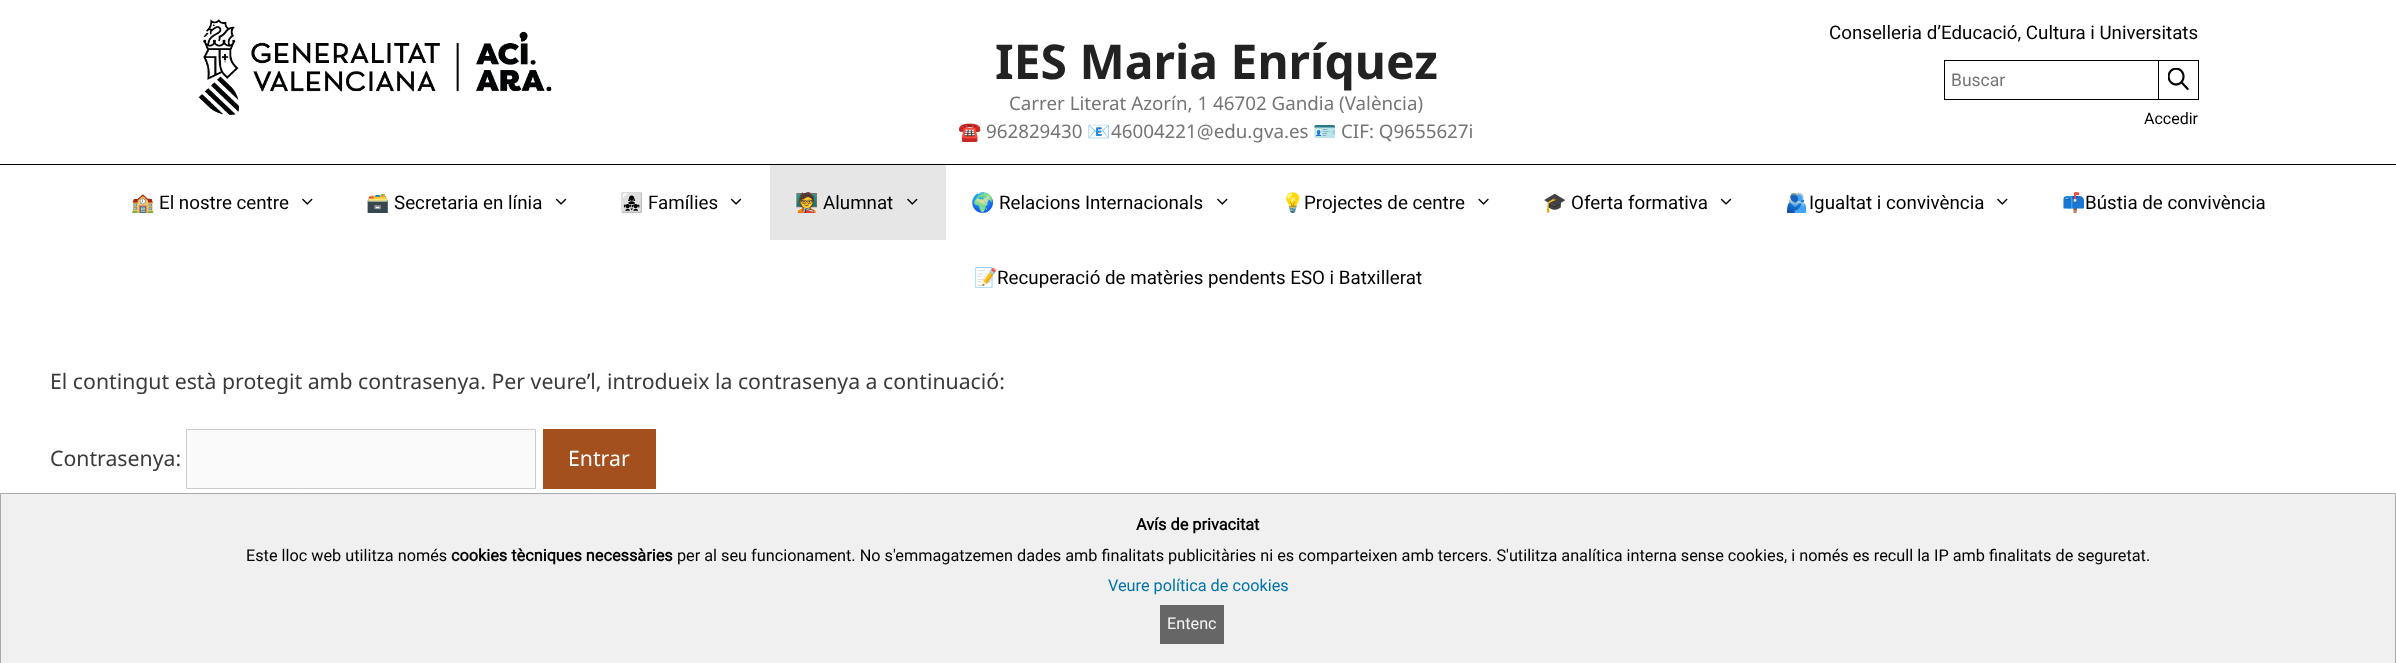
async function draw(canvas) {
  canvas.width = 2396
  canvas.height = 663
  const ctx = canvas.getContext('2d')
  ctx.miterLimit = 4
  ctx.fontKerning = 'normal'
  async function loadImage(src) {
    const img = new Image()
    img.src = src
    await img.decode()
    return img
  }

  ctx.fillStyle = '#fff'
  ctx.fillRect(0, 0, 2396, 663)
  ctx.fillStyle = '#000'
  ctx.fillRect(0, 164, 2396, 1)
  ctx.font = 'bold 48px Noto Sans'
  ctx.fillStyle = '#222'
  ctx.fillText('IES Maria Enríquez', 995, 79)
  ctx.font = '18.75px Noto Sans'
  ctx.fillStyle = '#757575'
  ctx.fillText('Carrer Literat Azorín, 1 46702 Gandia (València)', 1009, 110)
  ctx.font = '18.75px Noto Color Emoji'
  ctx.fillText('☎️', 958, 138)
  ctx.font = '18.75px Noto Sans'
  ctx.fillText('962829430', 986, 138)
  ctx.font = '18.75px Noto Color Emoji'
  ctx.fillText('📧', 1087, 138)
  ctx.font = '18.75px Noto Sans'
  ctx.fillText('46004221@edu.gva.es', 1111, 138)
  ctx.font = '18.75px Noto Color Emoji'
  ctx.fillText('🪪', 1313, 138)
  ctx.font = '18.75px Noto Sans'
  ctx.fillText('CIF: Q9655627i', 1341, 138)
  ctx.drawImage(await loadImage('image0.png'), 198, 19, 354, 96)
  ctx.font = '18.75px Roboto'
  ctx.fillStyle = '#000'
  ctx.fillText('Conselleria d’Educació, Cultura i Universitats', 1829, 39)
  ctx.strokeStyle = '#000'
  ctx.strokeRect(1944.5, 60.5, 214, 39)
  ctx.font = '17.5px Roboto'
  ctx.fillStyle = '#757575'
  ctx.fillText('Buscar', 1951, 86)
  ctx.drawImage(await loadImage('image1.png'), 2168, 68, 21, 22)
  ctx.fillStyle = '#000'
  ctx.fillRect(2159, 60, 40, 1)
  ctx.fillRect(2198, 60, 1, 40)
  ctx.fillRect(2159, 99, 40, 1)
  ctx.font = '16px Roboto'
  ctx.fillText('Accedir', 2144, 124)
  ctx.font = '18.75px Noto Color Emoji'
  ctx.fillText('🏫', 131, 209)
  ctx.font = '18.75px Roboto'
  ctx.fillText('El nostre centre', 159, 209)
  ctx.drawImage(await loadImage('image2.png'), 302, 198, 11, 7)
  ctx.font = '18.75px Noto Color Emoji'
  ctx.fillText('🗃️', 366, 209)
  ctx.font = '18.75px Roboto'
  ctx.fillText('Secretaria en línia', 394, 209)
  ctx.drawImage(await loadImage('image3.png'), 555, 198, 12, 7)
  ctx.font = '18.75px Noto Color Emoji'
  ctx.fillText('👩‍👧‍👧', 620, 209)
  ctx.font = '18.75px Roboto'
  ctx.fillText('Famílies', 648, 209)
  ctx.drawImage(await loadImage('image3.png'), 730, 198, 12, 7)
  ctx.fillStyle = '#e6e6e6'
  ctx.fillRect(770, 165, 176, 75)
  ctx.font = '18.75px Noto Color Emoji'
  ctx.fillStyle = '#000'
  ctx.fillText('🧑‍🏫', 795, 209)
  ctx.font = '18.75px Roboto'
  ctx.fillText('Alumnat', 823, 209)
  ctx.drawImage(await loadImage('image4.png'), 907, 198, 11, 7)
  ctx.font = '18.75px Noto Color Emoji'
  ctx.fillText('🌍', 971, 209)
  ctx.font = '18.75px Roboto'
  ctx.fillText('Relacions Internacionals', 999, 209)
  ctx.drawImage(await loadImage('image2.png'), 1217, 198, 11, 7)
  ctx.font = '18.75px Noto Color Emoji'
  ctx.fillText('💡', 1281, 209)
  ctx.font = '18.75px Roboto'
  ctx.fillText('Projectes de centre', 1304, 209)
  ctx.drawImage(await loadImage('image5.png'), 1478, 198, 11, 7)
  ctx.font = '18.75px Noto Color Emoji'
  ctx.fillText('🎓', 1543, 209)
  ctx.font = '18.75px Roboto'
  ctx.fillText('Oferta formativa', 1571, 209)
  ctx.drawImage(await loadImage('image3.png'), 1720, 198, 12, 7)
  ctx.font = '18.75px Noto Color Emoji'
  ctx.fillText('🫂', 1785, 209)
  ctx.font = '18.75px Roboto'
  ctx.fillText('Igualtat i convivència', 1809, 209)
  ctx.drawImage(await loadImage('image2.png'), 1997, 198, 11, 7)
  ctx.font = '18.75px Noto Color Emoji'
  ctx.fillText('📫', 2062, 209)
  ctx.font = '18.75px Roboto'
  ctx.fillText('Bústia de convivència', 2085, 209)
  ctx.font = '18.75px Noto Color Emoji'
  ctx.fillText('📝', 974, 284)
  ctx.font = '18.75px Roboto'
  ctx.fillText('Recuperació de matèries pendents ESO i Batxillerat', 997, 284)
  ctx.font = '21.25px Noto Sans'
  ctx.fillStyle = '#3a3a3a'
  ctx.fillText('El contingut està protegit amb contrasenya. Per veure’l, introdueix la contrasenya a continuació:', 50, 389)
  ctx.fillText('Contrasenya:', 50, 466)
  ctx.fillStyle = '#fafafa'
  ctx.beginPath()
  ctx.rect(186.5, 429.5, 349, 59)
  ctx.fill()
  ctx.strokeStyle = '#ccc'
  ctx.stroke()
  ctx.fillStyle = '#a4501e'
  ctx.fillRect(543, 429, 113, 60)
  ctx.fillStyle = '#fff'
  ctx.fillText('Entrar', 568, 466)
  ctx.fillStyle = '#f0f0f0'
  ctx.beginPath()
  ctx.rect(0.5, 493.5, 2395, 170)
  ctx.fill()
  ctx.strokeStyle = '#a9a9a9'
  ctx.stroke()
  ctx.font = 'bold 16.25px Roboto'
  ctx.fillStyle = '#000'
  ctx.fillText('Avís de privacitat', 1136, 530)
  ctx.font = '16.25px Roboto'
  ctx.fillText('Este lloc web utilitza només', 246, 561)
  ctx.font = 'bold 16.25px Roboto'
  ctx.fillText('cookies tècniques necessàries', 451, 561)
  ctx.font = '16.25px Roboto'
  ctx.fillText('per al seu funcionament. No s\'emmagatzemen dades amb finalitats publicitàries ni es comparteixen amb tercers. S\'utilitza analítica interna sense cookies, i només es recull la IP amb finalitats de seguretat.', 677, 561)
  ctx.fillStyle = '#0073aa'
  ctx.fillText('Veure política de cookies', 1108, 591)
  ctx.fillStyle = '#666'
  ctx.fillRect(1160, 605, 64, 39)
  ctx.fillStyle = '#f5f5f5'
  ctx.fillText('Entenc', 1167, 629)
}

draw(document.querySelector('canvas'))
